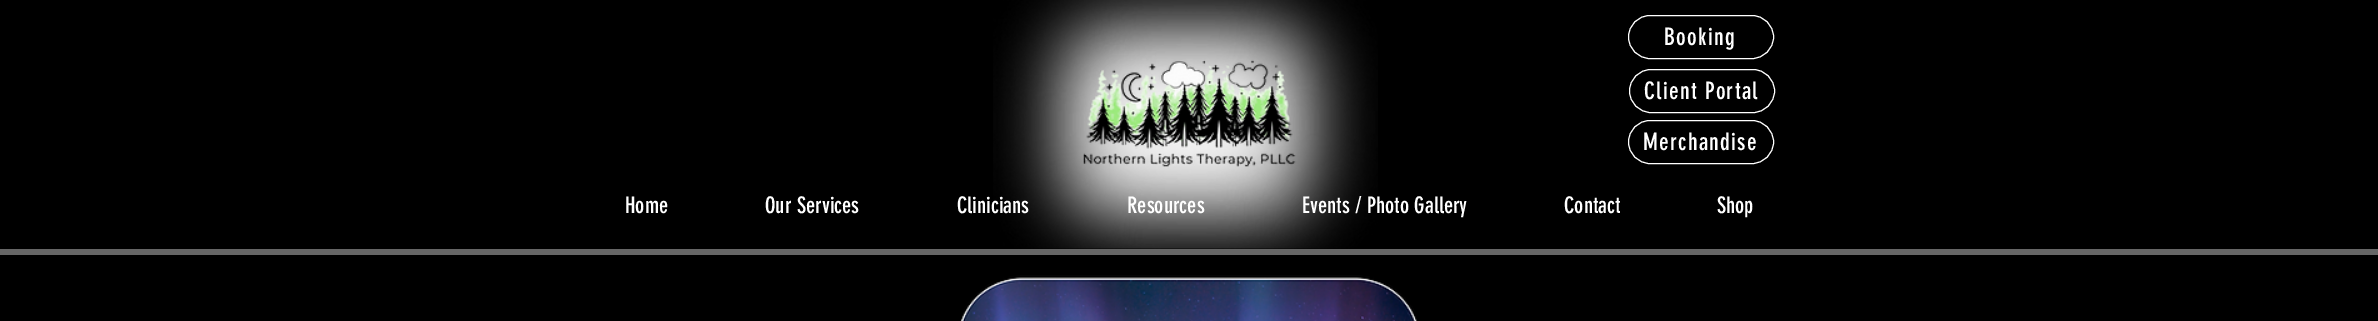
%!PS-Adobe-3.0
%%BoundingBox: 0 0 2378 321
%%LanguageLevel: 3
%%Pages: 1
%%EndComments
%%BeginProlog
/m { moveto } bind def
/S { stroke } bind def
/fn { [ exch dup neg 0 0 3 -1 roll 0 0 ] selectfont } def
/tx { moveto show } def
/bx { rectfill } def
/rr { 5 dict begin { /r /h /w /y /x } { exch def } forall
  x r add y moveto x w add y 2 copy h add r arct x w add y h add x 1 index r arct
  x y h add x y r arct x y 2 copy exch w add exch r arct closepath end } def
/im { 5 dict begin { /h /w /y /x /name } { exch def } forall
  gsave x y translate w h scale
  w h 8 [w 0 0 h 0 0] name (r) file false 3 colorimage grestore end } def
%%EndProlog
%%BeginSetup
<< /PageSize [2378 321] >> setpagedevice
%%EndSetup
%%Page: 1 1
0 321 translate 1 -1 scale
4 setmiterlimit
0 setgray
0 0 2378 321 bx
(image0.raw) 993 0 385 249 im
1 setgray
1628.5 15.5 145 43 21.5 rr S
/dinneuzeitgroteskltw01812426-Regular 23.75 fn
1664 45 m 1.25 0 (Booking) ashow
1629.5 69.5 145 43 21.5 rr S
1644 99 m 1.25 0 (Client Portal) ashow
1628.5 120.5 145 43 21.5 rr S
1643 150 m 1.25 0 (Merchandise) ashow
/dinneuzeitgroteskltw01812426-Regular 22.5 fn
(Home) 625 213 tx
(Our Services) 765 213 tx
(Clinicians) 957 213 tx
(Resources) 1127 213 tx
(Events / Photo Gallery) 1302 213 tx
(Contact) 1564 213 tx
(Shop) 1717 213 tx
0.4 setgray
0 249 2378 6 bx
(image1.raw) 961 275 456 46 im
showpage
%%EOF
